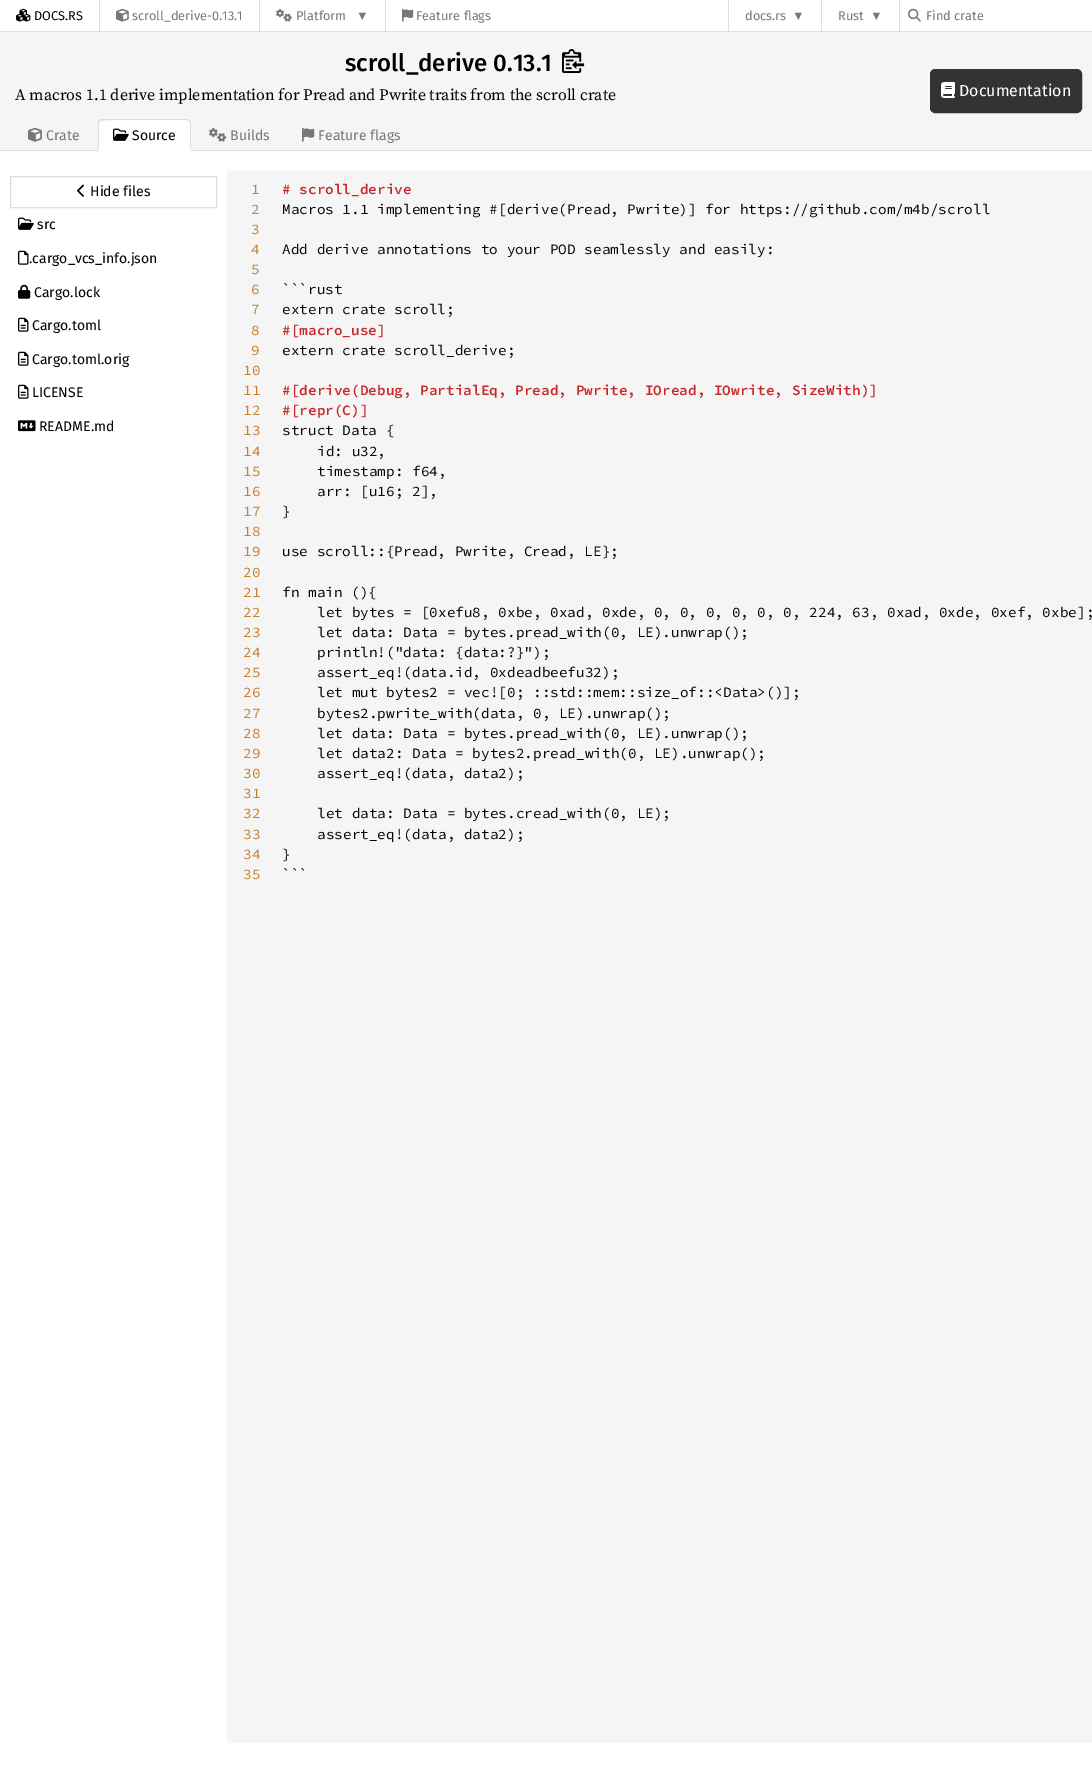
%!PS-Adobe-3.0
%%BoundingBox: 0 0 1092 1773
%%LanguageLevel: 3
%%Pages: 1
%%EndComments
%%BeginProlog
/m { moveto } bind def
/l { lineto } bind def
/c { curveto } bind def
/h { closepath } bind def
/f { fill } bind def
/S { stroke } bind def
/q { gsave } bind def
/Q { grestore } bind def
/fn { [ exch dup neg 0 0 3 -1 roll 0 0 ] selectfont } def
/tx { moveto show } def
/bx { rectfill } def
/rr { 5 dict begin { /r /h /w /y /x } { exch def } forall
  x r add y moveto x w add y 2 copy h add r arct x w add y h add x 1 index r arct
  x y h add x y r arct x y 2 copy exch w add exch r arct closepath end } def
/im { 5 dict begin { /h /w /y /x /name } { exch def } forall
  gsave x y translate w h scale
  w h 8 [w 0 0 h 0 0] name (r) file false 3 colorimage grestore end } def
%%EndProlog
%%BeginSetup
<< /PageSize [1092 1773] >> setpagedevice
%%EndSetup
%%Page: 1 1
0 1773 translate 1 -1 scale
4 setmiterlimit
1 setgray
0 0 1092 1773 bx
0.867 setgray
0 31 1092 1 bx
(image0.raw) 16 8 15 14 im
/FiraSans-Regular 12.75 fn
0 setgray
(DOCS.RS) 34 20 tx
0.867 setgray
99 0 1 31 bx
(image1.raw) 116 8 13 14 im
0.467 setgray
(scroll_derive-0.13.1) 132 20 tx
0.867 setgray
259 0 1 31 bx
(image2.raw) 276 9 16 13 im
0.467 setgray
(Platform) 296 20 tx
/LiberationSans-Regular 12.75 fn
(▼) 356 20 tx
0.867 setgray
385 0 1 31 bx
(image3.raw) 402 8 12 14 im
/FiraSans-Regular 12.75 fn
0.467 setgray
(Feature flags) 416 20 tx
0.867 setgray
728 0 1 31 bx
0.467 setgray
(docs.rs) 745 20 tx
/LiberationSans-Regular 12.75 fn
(▼) 792 20 tx
0.867 setgray
821 0 1 31 bx
/FiraSans-Regular 12.75 fn
0.467 setgray
(Rust) 838 20 tx
/LiberationSans-Regular 12.75 fn
(▼) 870 20 tx
0.867 setgray
899 0 1 31 bx
(image4.raw) 908 8 13 14 im
/FiraSans-Regular 12.75 fn
0.467 setgray
(Find crate) 926 20 tx
0.961 setgray
0 32 1092 118 bx
0.867 setgray
0 150 1092 1 bx
/FiraSans-Medium 24 fn
0 setgray
(scroll_derive 0.13.1) 345 71 tx
(image5.raw) 562 49 23 24 im
/SourceSerif4-Regular 16 fn
(A macros 1.1 derive implementation for Pread and Pwrite traits from the scroll crate) 15 100 tx
(image6.raw) 28 127 14 15 im
/FiraSans-Regular 14 fn
0.467 setgray
(Crate) 46 140 tx
1 setgray
102 120 m 187 120 l 188.5 120 190 121.5 190 123 c 190 149 l 99 149 l 99 123 l 99 121.5 100.5 120 102 120 c h f
0.867 setgray
102 119 m 99 120 l 100 121 l 102 119 165 120 173 120 c 187 120 l 189 121 l 190 120 l 187 119 l h f
191 151 m 191 123 l 191 122 190.5 121 190 120 c 189 121 l 190 121 190 122 190 123 c 190 149 l h f
1 setgray
191 151 m 190 149 l 99 149 l 98 151 l h f
0.867 setgray
98 151 m 99 149 l 99 123 l 99 122 99 121 100 121 c 99 120 l 98.5 121 98 122 98 123 c h f
(image7.raw) 113 128 16 13 im
0 setgray
(Source) 132 140 tx
(image8.raw) 209 128 18 14 im
0.467 setgray
(Builds) 230 140 tx
(image9.raw) 302 127 13 15 im
(Feature flags) 318 140 tx
0.2 setgray
930.5 69.5 151 43 4.5 rr q f Q
S
(image10.raw) 941 82 14 16 im
/FiraSans-Regular 16 fn
1 setgray
(Documentation) 959 96 tx
0.867 setgray
10.5 176.5 206 31 rectstroke
(image11.raw) 77 184 7 13 im
/FiraSans-Regular 14 fn
0 setgray
(Hide files) 90 196 tx
(image7.raw) 18 217 16 13 im
(src) 37 229 tx
(image12.raw) 18 250 11 15 im
(.cargo_vcs_info.json) 29 263 tx
(image13.raw) 18 284 13 15 im
(Cargo.lock) 34 297 tx
(image14.raw) 18 317 11 15 im
(Cargo.toml) 32 330 tx
(image14.raw) 18 351 11 15 im
(Cargo.toml.orig) 32 364 tx
(image14.raw) 18 384 11 15 im
(LICENSE) 32 397 tx
(image15.raw) 18 420 18 12 im
(README.md) 39 431 tx
0.961 setgray
227 171 865 1572 bx
/SourceCodePro-Regular 14.4 fn
0.776 0.494 0.176 setrgbcolor
(1) 251 194 tx
(2) 251 214 tx
(3) 251 234 tx
(4) 251 254 tx
(5) 251 274 tx
(6) 251 294 tx
(7) 251 314 tx
(8) 251 335 tx
(9) 251 355 tx
(10) 243 375 tx
(11) 243 395 tx
(12) 243 415 tx
(13) 243 435 tx
(14) 243 456 tx
(15) 243 476 tx
(16) 243 496 tx
(17) 243 516 tx
(18) 243 536 tx
(19) 243 556 tx
(20) 243 577 tx
(21) 243 597 tx
(22) 243 617 tx
(23) 243 637 tx
(24) 243 657 tx
(25) 243 677 tx
(26) 243 697 tx
(27) 243 718 tx
(28) 243 738 tx
(29) 243 758 tx
(30) 243 778 tx
(31) 243 798 tx
(32) 243 818 tx
(33) 243 839 tx
(34) 243 859 tx
(35) 243 879 tx
/SourceCodePro-SemiBold 14.4 fn
0.784 0.157 0.161 setrgbcolor
(# scroll_derive) 282 194 tx
/SourceCodePro-Regular 14.4 fn
0 setgray
(Macros 1.1 implementing #[derive\(Pread, Pwrite\)] for https://github.com/m4b/scroll) 282 214 tx
(Add derive annotations to your POD seamlessly and easily:) 282 254 tx
(```rust) 282 294 tx
(extern crate scroll;) 282 314 tx
/SourceCodePro-SemiBold 14.4 fn
0.784 0.157 0.161 setrgbcolor
(#[macro_use]) 282 335 tx
/SourceCodePro-Regular 14.4 fn
0 setgray
(extern crate scroll_derive;) 282 355 tx
/SourceCodePro-SemiBold 14.4 fn
0.784 0.157 0.161 setrgbcolor
(#[derive\(Debug, PartialEq, Pread, Pwrite, IOread, IOwrite, SizeWith\)]) 282 395 tx
(#[repr\(C\)]) 282 415 tx
/SourceCodePro-Regular 14.4 fn
0 setgray
(struct Data {) 282 435 tx
(id: u32,) 317 456 tx
(timestamp: f64,) 317 476 tx
(arr: [u16; 2],) 317 496 tx
(}) 282 516 tx
(use scroll::{Pread, Pwrite, Cread, LE};) 282 556 tx
(fn main \(\){) 282 597 tx
(let bytes = [0xefu8, 0xbe, 0xad, 0xde, 0, 0, 0, 0, 0, 0, 224, 63, 0xad, 0xde, 0xef, 0xbe];) 317 617 tx
(let data: Data = bytes.pread_with\(0, LE\).unwrap\(\);) 317 637 tx
(println!\("data: {data:?}"\);) 317 657 tx
(assert_eq!\(data.id, 0xdeadbeefu32\);) 317 677 tx
(let mut bytes2 = vec![0; ::std::mem::size_of::<Data>\(\)];) 317 697 tx
(bytes2.pwrite_with\(data, 0, LE\).unwrap\(\);) 317 718 tx
(let data: Data = bytes.pread_with\(0, LE\).unwrap\(\);) 317 738 tx
(let data2: Data = bytes2.pread_with\(0, LE\).unwrap\(\);) 317 758 tx
(assert_eq!\(data, data2\);) 317 778 tx
(let data: Data = bytes.cread_with\(0, LE\);) 317 818 tx
(assert_eq!\(data, data2\);) 317 839 tx
(}) 282 859 tx
(```) 282 879 tx
showpage
%%EOF
